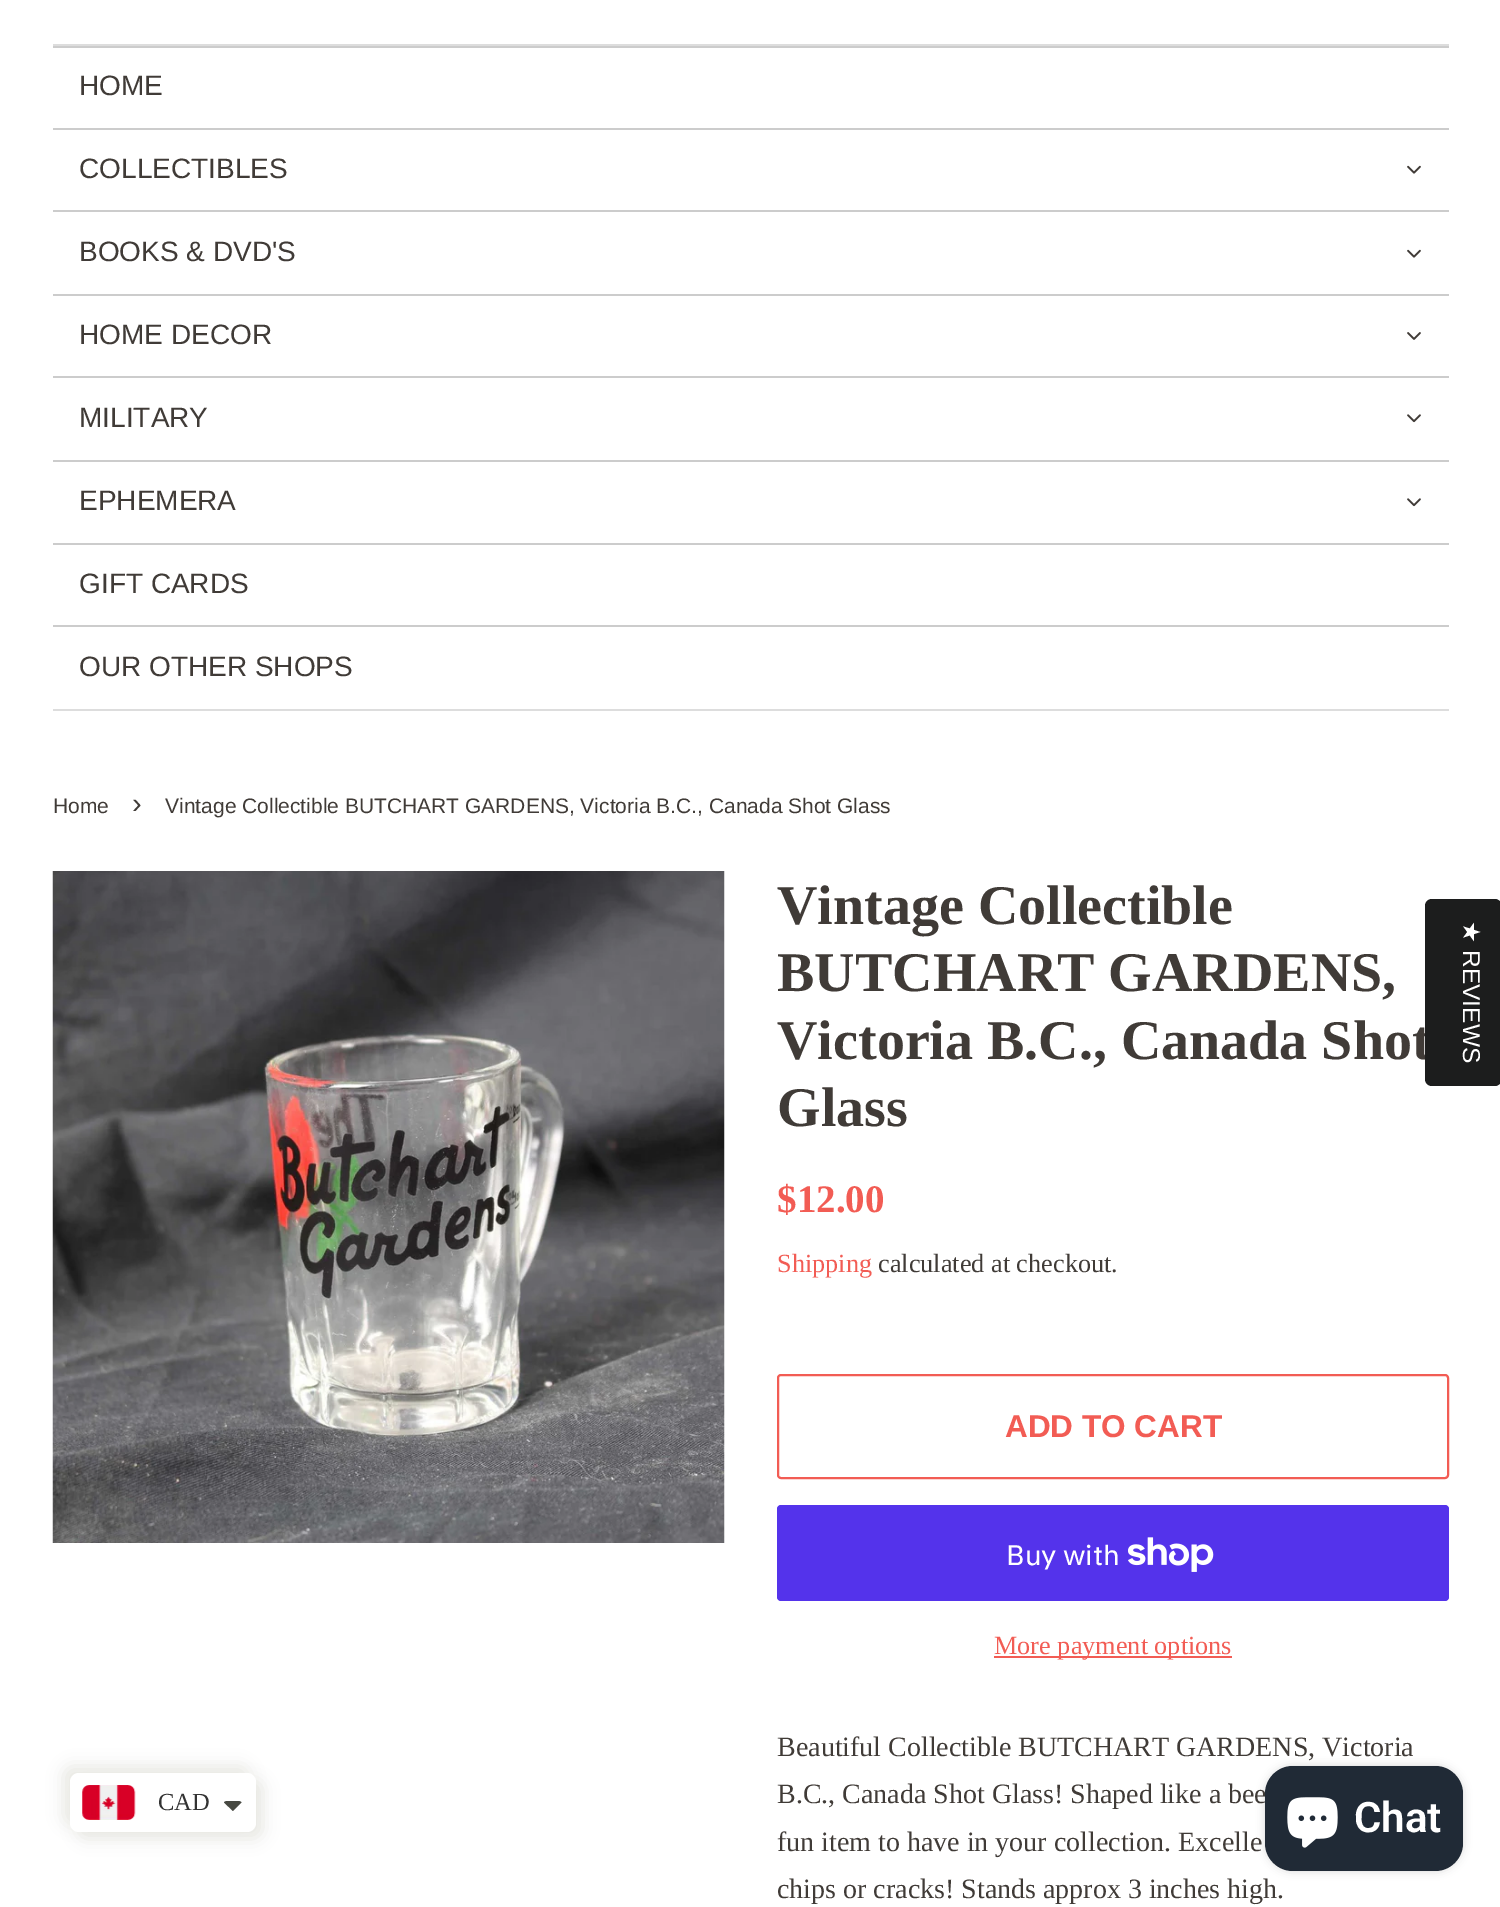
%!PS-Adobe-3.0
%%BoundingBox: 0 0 1500 1907
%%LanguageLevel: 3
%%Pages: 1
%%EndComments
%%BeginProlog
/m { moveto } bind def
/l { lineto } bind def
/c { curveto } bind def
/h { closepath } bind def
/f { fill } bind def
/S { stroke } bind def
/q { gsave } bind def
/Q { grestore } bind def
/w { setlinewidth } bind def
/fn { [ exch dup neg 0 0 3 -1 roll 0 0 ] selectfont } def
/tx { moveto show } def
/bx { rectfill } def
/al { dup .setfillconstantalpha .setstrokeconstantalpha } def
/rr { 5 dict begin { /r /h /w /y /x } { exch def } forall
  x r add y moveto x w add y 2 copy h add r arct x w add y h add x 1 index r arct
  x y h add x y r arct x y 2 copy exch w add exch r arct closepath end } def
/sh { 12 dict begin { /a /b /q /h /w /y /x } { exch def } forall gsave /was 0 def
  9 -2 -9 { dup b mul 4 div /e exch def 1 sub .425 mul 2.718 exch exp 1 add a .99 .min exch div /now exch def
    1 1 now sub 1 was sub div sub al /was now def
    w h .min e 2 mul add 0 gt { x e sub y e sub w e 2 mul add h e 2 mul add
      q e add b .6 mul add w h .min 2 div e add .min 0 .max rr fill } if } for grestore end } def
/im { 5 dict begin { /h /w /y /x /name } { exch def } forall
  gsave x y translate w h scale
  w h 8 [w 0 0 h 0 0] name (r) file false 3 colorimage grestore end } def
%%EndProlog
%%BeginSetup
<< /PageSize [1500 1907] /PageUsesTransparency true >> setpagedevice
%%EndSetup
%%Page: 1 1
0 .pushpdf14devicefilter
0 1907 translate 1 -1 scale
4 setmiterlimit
1 setgray
0 0 1500 1907 bx
0.867 setgray
53 44 1396 2 bx
53 709 1396 2 bx
0.8 setgray
53 46 1396 2 bx
/LiberationSans-Regular 28 fn
0.251 0.231 0.216 setrgbcolor
(HOME) 79 95 tx
0.8 setgray
53 128 1396 2 bx
0.251 0.231 0.216 setrgbcolor
(COLLECTIBLES) 79 178 tx
(image0.raw) 1407 165 14 9 im
0.8 setgray
53 210 1396 2 bx
0.251 0.231 0.216 setrgbcolor
(BOOKS & DVD'S) 79 261 tx
(image0.raw) 1407 249 14 9 im
0.8 setgray
53 294 1396 2 bx
0.251 0.231 0.216 setrgbcolor
(HOME DECOR) 79 344 tx
(image1.raw) 1407 332 14 8 im
0.8 setgray
53 376 1396 2 bx
0.251 0.231 0.216 setrgbcolor
(MILITARY) 79 427 tx
(image2.raw) 1407 414 14 9 im
0.8 setgray
53 460 1396 2 bx
0.251 0.231 0.216 setrgbcolor
(EPHEMERA) 79 510 tx
(image2.raw) 1407 498 14 9 im
0.8 setgray
53 543 1396 2 bx
0.251 0.231 0.216 setrgbcolor
(GIFT CARDS) 79 593 tx
0.8 setgray
53 625 1396 2 bx
0.251 0.231 0.216 setrgbcolor
(OUR OTHER SHOPS) 79 676 tx
/LiberationSans-Regular 21 fn
(Home) 53 813 tx
/LiberationSans-Regular 29 fn
(›) 132 813 tx
/LiberationSans-Regular 21 fn
(Vintage Collectible BUTCHART GARDENS, Victoria B.C., Canada Shot Glass) 165 813 tx
(image3.raw) 52 871 673 672 im
/LiberationSerif-Bold 56 fn
(Vintage Collectible) 777 924 tx
(BUTCHART GARDENS,) 777 991 tx
(Victoria B.C., Canada Shot) 777 1059 tx
(Glass) 777 1126 tx
/LiberationSerif-Bold 39 fn
0.949 0.361 0.329 setrgbcolor
($12.00) 777 1212 tx
/LiberationSerif-Regular 26.25 fn
(Shipping) 777 1272 tx
0.251 0.231 0.216 setrgbcolor
(calculated at checkout.) 878 1272 tx
0.949 0.361 0.329 setrgbcolor
2 w
778 1375 670 103 3 rr S
/LiberationSans-Bold 31.5 fn
(ADD TO CART) 1005 1437 tx
0.329 0.2 0.922 setrgbcolor
777 1505 672 96 4 rr f
/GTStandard-Regular 28 fn
1 setgray
(Buy with) 1006 1565 tx
(image4.raw) 1128 1537 86 35 im
0.949 0.361 0.329 setrgbcolor
994 1656 238 2 bx
/LiberationSerif-Regular 26.25 fn
(More payment options) 994 1654 tx
/LiberationSerif-Regular 28 fn
0.251 0.231 0.216 setrgbcolor
(Beautiful Collectible BUTCHART GARDENS, Victoria) 777 1756 tx
(B.C., Canada Shot Glass! Shaped like a bee) 777 1803 tx
(fun item to have in your collection. Excelle) 777 1851 tx
(chips or cracks! Stands approx 3 inches high.) 777 1898 tx
0.11 0.114 0.114 setrgbcolor
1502 906 m 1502 1079 l 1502 1083 1498 1086 1495 1086 c 1432 1086 l 1428 1086 1425 1083 1425 1079 c 1425 906 l 1425 902 1428 899 1432 899 c 1495 899 l 1498 899 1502 902 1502 906 c h f
/DejaVuSans-Regular 24.5 fn
1 setgray
q 1463 921 translate 90 rotate 0 0 m (★) show Q
/LiberationSans-Regular 24.5 fn
q 1463 950 translate 90 rotate 0 0 m (REVIEWS) show Q
0.91 0.91 0.886 setrgbcolor
63 1766 186 59 9 8 1 sh
77 1780 186 59 9 8 1 sh
1 setgray
70 1773 186 59 9 rr f
(image5.raw) 82 1785 54 35 im
/LiberationSerif-Regular 24.5 fn
0.2 setgray
(CAD) 158 1810 tx
0.278 0.286 0.259 setrgbcolor
227.5 1801 m 238 1801 l 239.5 1801 241 1801.5 241.5 1802.5 c 233 1811 l 224 1802.5 l 224.5 1801.5 226 1801 227.5 1801 c h f
0 setgray
1265 1766 198 105 28 4.5 0.15 sh
0.125 0.165 0.212 setrgbcolor
1265 1766 198 105 28 rr f
(image6.raw) 1287 1797 51 51 im
/Roboto-SemiBold 42 fn
1 setgray
(Chat) 1354 1832 tx
.poppdf14devicefilter showpage
%%EOF
